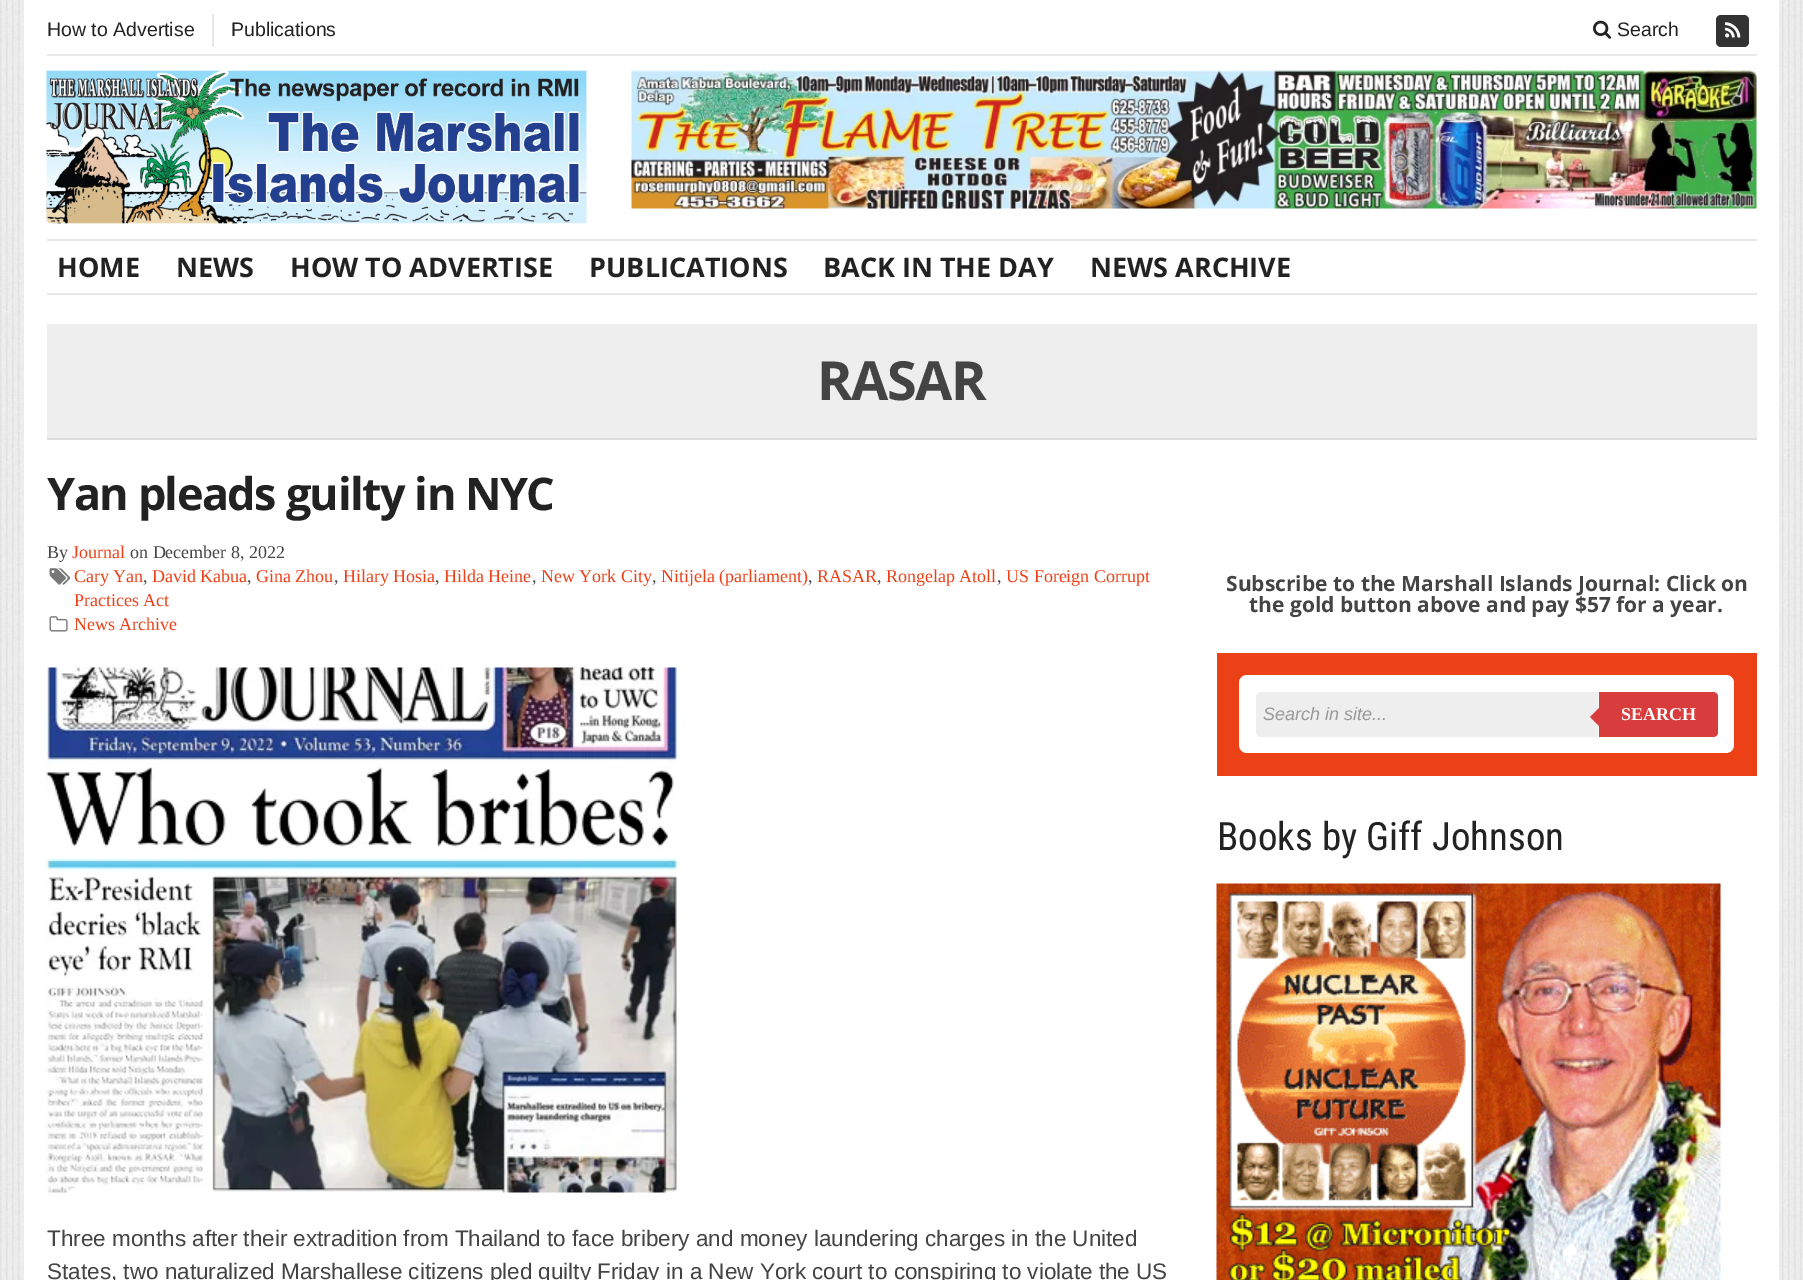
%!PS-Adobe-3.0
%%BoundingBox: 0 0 1803 1280
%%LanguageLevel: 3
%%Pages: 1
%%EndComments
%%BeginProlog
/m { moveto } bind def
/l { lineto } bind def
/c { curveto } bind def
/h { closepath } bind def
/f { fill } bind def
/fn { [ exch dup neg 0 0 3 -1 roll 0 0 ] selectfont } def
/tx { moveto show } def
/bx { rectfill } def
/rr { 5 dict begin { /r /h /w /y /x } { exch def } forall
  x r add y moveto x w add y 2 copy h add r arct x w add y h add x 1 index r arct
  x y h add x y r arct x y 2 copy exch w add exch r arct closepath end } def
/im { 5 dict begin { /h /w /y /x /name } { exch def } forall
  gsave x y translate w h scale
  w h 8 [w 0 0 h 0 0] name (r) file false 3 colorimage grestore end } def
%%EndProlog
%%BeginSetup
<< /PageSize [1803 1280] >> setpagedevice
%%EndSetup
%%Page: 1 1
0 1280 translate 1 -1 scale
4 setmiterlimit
1 setgray
0 0 1803 1280 bx
(image0.raw) 0 0 1803 1280 im
24 0 1755 1280 bx
0.91 setgray
47 54 1710 2 bx
/LiberationSans-Regular 19.5 fn
0.133 setgray
(How to Advertise) 47 36 tx
0.91 setgray
212 14 2 33 bx
0.133 setgray
(Publications) 231 36 tx
(image1.raw) 1593 20 19 19 im
(Search) 1617 36 tx
0.2 setgray
1716 15 33 32 5 rr f
(image2.raw) 1725 22 16 16 im
(image3.raw) 46 70 541 154 im
(image4.raw) 631 70 1126 139 im
0.91 setgray
47 239 1710 2 bx
47 293 1710 2 bx
/OpenSans-Bold 27 fn
0.133 setgray
(HOME) 57 277 tx
(NEWS) 176 277 tx
(HOW TO ADVERTISE) 290 277 tx
(PUBLICATIONS) 589 277 tx
(BACK IN THE DAY) 823 277 tx
(NEWS ARCHIVE) 1090 277 tx
0.933 setgray
47 324 1710 114 bx
0.867 setgray
47 438 1710 2 bx
/OpenSans-Bold 54 fn
0.267 setgray
817 400 m -1.5 0 (RASAR) ashow
/OpenSans-Bold 45 fn
0.133 setgray
47 510 m -1.5 0 (Yan pleads guilty in NYC) ashow
/LiberationSerif-Regular 18 fn
0.267 setgray
(By) 47 558 tx
0.925 0.251 0.09 setrgbcolor
(Journal) 72 558 tx
0.267 setgray
(on December 8, 2022) 130 558 tx
(image5.raw) 49 568 22 17 im
0.925 0.251 0.09 setrgbcolor
(Cary Yan) 74 582 tx
0.267 setgray
(,) 143 582 tx
0.925 0.251 0.09 setrgbcolor
(David Kabua) 152 582 tx
0.267 setgray
(,) 247 582 tx
0.925 0.251 0.09 setrgbcolor
(Gina Zhou) 256 582 tx
0.267 setgray
(,) 334 582 tx
0.925 0.251 0.09 setrgbcolor
(Hilary Hosia) 343 582 tx
0.267 setgray
(,) 435 582 tx
0.925 0.251 0.09 setrgbcolor
(Hilda Heine) 444 582 tx
0.267 setgray
(,) 532 582 tx
0.925 0.251 0.09 setrgbcolor
(New York City) 541 582 tx
0.267 setgray
(,) 652 582 tx
0.925 0.251 0.09 setrgbcolor
(Nitijela \(parliament\)) 661 582 tx
0.267 setgray
(,) 808 582 tx
0.925 0.251 0.09 setrgbcolor
(RASAR) 817 582 tx
0.267 setgray
(,) 877 582 tx
0.925 0.251 0.09 setrgbcolor
(Rongelap Atoll) 886 582 tx
0.267 setgray
(,) 997 582 tx
0.925 0.251 0.09 setrgbcolor
(US Foreign Corrupt) 1006 582 tx
(Practices Act) 74 606 tx
(image6.raw) 49 616 19 16 im
(News Archive) 74 630 tx
(image7.raw) 46 667 631 526 im
/LiberationSans-Regular 22.5 fn
0.267 setgray
(Three months after their extradition from Thailand to face bribery and money laundering charges in the United) 47 1246 tx
(States, two naturalized Marshallese citizens pled guilty Friday in a New York court to conspiring to violate the US) 47 1279 tx
/OpenSans-Bold 21 fn
(Subscribe to the Marshall Islands Journal: Click on) 1226 591 tx
(the gold button above and pay $57 for a year.) 1249 612 tx
0.925 0.251 0.09 setrgbcolor
1217 653 540 123 bx
1 setgray
1239 675 495 78 8 rr f
0.933 setgray
1261 692 m 1598 692 l 1598 737 l 1261 737 l 1258 737 1256 735 1256 732 c 1256 697 l 1256 694 1258 692 1261 692 c h f
/LiberationSans-Italic 18 fn
0.6 setgray
(Search in site...) 1263 720 tx
0.847 0.235 0.235 setrgbcolor
1599 692 m 1713 692 l 1716 692 1718 694 1718 697 c 1718 732 l 1718 735 1716 737 1713 737 c 1599 737 l h f
1602 705 m 1602 729 l 1590 717 l h f
/LiberationSerif-Bold 18 fn
1 setgray
(SEARCH) 1621 720 tx
/RobotoCondensed-Regular 39 fn
0.133 setgray
(Books by Giff Johnson) 1217 850 tx
(image8.raw) 1216 883 505 397 im
showpage
%%EOF
